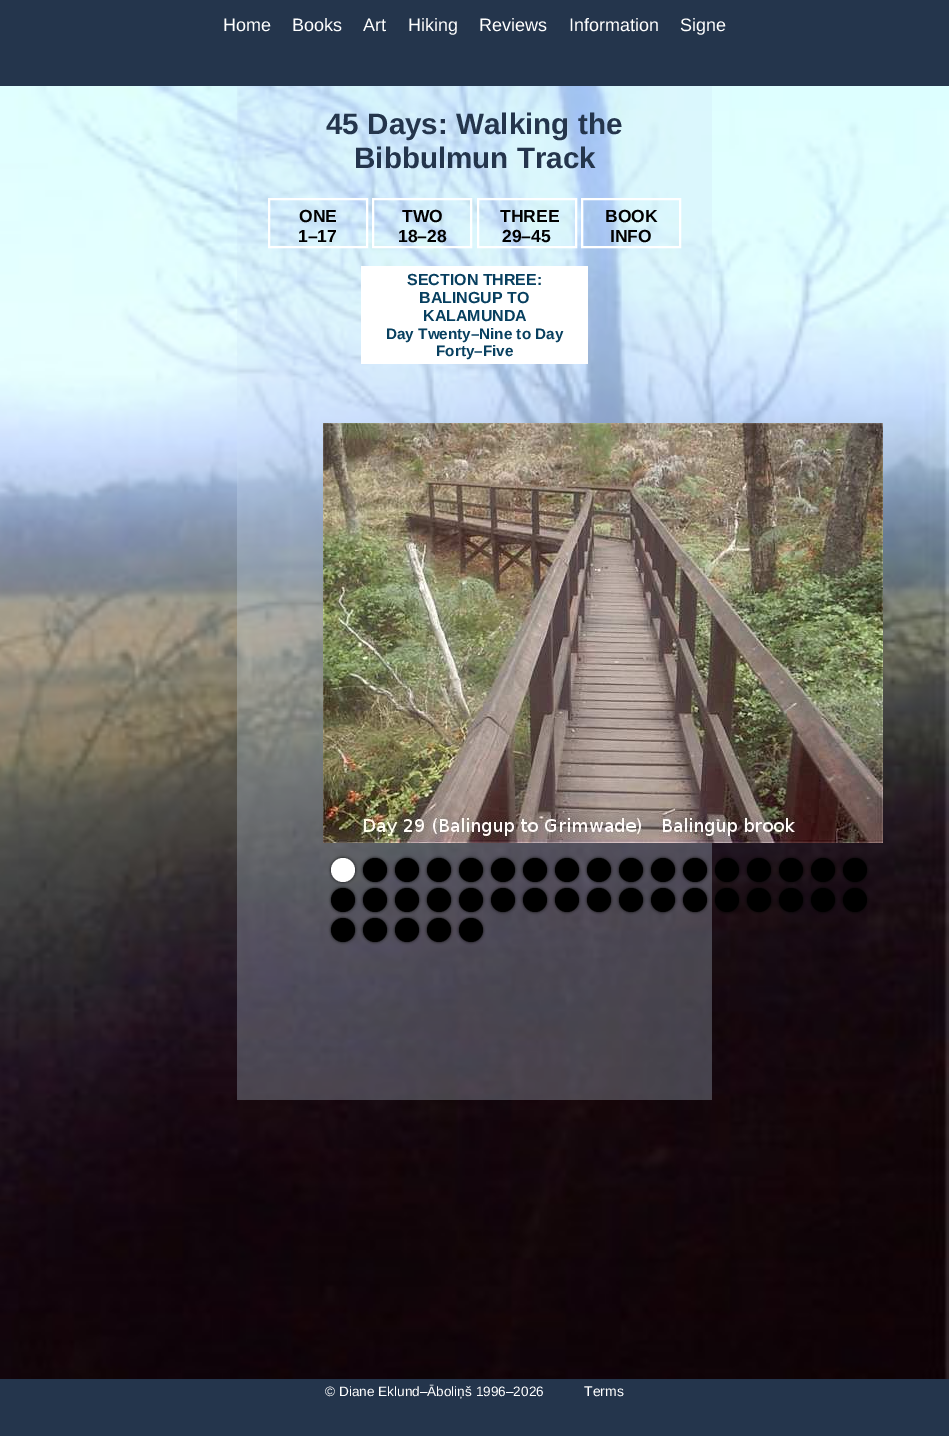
%!PS-Adobe-3.0
%%BoundingBox: 0 0 949 1436
%%LanguageLevel: 3
%%Pages: 1
%%EndComments
%%BeginProlog
/f { fill } bind def
/w { setlinewidth } bind def
/fn { [ exch dup neg 0 0 3 -1 roll 0 0 ] selectfont } def
/tx { moveto show } def
/bx { rectfill } def
/al { dup .setfillconstantalpha .setstrokeconstantalpha } def
/ci { newpath 0 360 arc closepath } def
/rr { 5 dict begin { /r /h /w /y /x } { exch def } forall
  x r add y moveto x w add y 2 copy h add r arct x w add y h add x 1 index r arct
  x y h add x y r arct x y 2 copy exch w add exch r arct closepath end } def
/sh { 12 dict begin { /a /b /q /h /w /y /x } { exch def } forall gsave /was 0 def
  9 -2 -9 { dup b mul 4 div /e exch def 1 sub .425 mul 2.718 exch exp 1 add a .99 .min exch div /now exch def
    1 1 now sub 1 was sub div sub al /was now def
    w h .min e 2 mul add 0 gt { x e sub y e sub w e 2 mul add h e 2 mul add
      q e add b .6 mul add w h .min 2 div e add .min 0 .max rr fill } if } for grestore end } def
/im { 5 dict begin { /h /w /y /x /name } { exch def } forall
  gsave x y translate w h scale
  w h 8 [w 0 0 h 0 0] name (r) file false 3 colorimage grestore end } def
%%EndProlog
%%BeginSetup
<< /PageSize [949 1436] /PageUsesTransparency true >> setpagedevice
%%EndSetup
%%Page: 1 1
0 .pushpdf14devicefilter
0 1436 translate 1 -1 scale
4 setmiterlimit
1 setgray
0 0 949 1436 bx
(image0.raw) 0 86 949 1293 im
0.141 0.208 0.298 setrgbcolor
0 0 949 86 bx
/LiberationSans-Regular 18 fn
1 setgray
(Home) 223 31 tx
(Books) 292 31 tx
(Art) 363 31 tx
(Hiking) 408 31 tx
(Reviews) 479 31 tx
(Information) 569 31 tx
(Signe) 680 31 tx
0.27 al
0.808 0.89 0.965 setrgbcolor
237 86 475 1014 bx
/LiberationSans-Bold 29.6 fn
1 al
0.141 0.208 0.298 setrgbcolor
(45 Days: Walking the) 326 134 tx
(Bibbulmun Track) 354 168 tx
1 setgray
2 w
269 199 98 48 rectstroke
/LiberationSans-Bold 17.5 fn
0 setgray
(ONE) 299 222 tx
(1–17) 298 242 tx
1 setgray
373 199 98 48 rectstroke
0 setgray
(TWO) 402 222 tx
(18–28) 398 242 tx
1 setgray
478 199 98 48 rectstroke
0 setgray
(THREE) 500 222 tx
(29–45) 502 242 tx
1 setgray
582 199 98 48 rectstroke
0 setgray
(BOOK) 605 222 tx
(INFO) 610 242 tx
1 setgray
361 266 227 98 bx
/LiberationSans-Bold 16 fn
0.027 0.247 0.373 setrgbcolor
(SECTION THREE:) 407 285 tx
(BALINGUP TO) 419 303 tx
(KALAMUNDA) 423 321 tx
/LiberationSans-Bold 15.25 fn
(Day Twenty–Nine to Day) 386 339 tx
(Forty–Five) 436 356 tx
(image1.raw) 323 423 560 420 im
0 setgray
331 858 24 24 12 1.5 0.8 sh
1 setgray
343 870 12 ci f
0 setgray
363 858 24 24 12 1.5 0.8 sh
375 870 12 ci f
395 858 24 24 12 1.5 0.8 sh
407 870 12 ci f
427 858 24 24 12 1.5 0.8 sh
439 870 12 ci f
459 858 24 24 12 1.5 0.8 sh
471 870 12 ci f
491 858 24 24 12 1.5 0.8 sh
503 870 12 ci f
523 858 24 24 12 1.5 0.8 sh
535 870 12 ci f
555 858 24 24 12 1.5 0.8 sh
567 870 12 ci f
587 858 24 24 12 1.5 0.8 sh
599 870 12 ci f
619 858 24 24 12 1.5 0.8 sh
631 870 12 ci f
651 858 24 24 12 1.5 0.8 sh
663 870 12 ci f
683 858 24 24 12 1.5 0.8 sh
695 870 12 ci f
715 858 24 24 12 1.5 0.8 sh
727 870 12 ci f
747 858 24 24 12 1.5 0.8 sh
759 870 12 ci f
779 858 24 24 12 1.5 0.8 sh
791 870 12 ci f
811 858 24 24 12 1.5 0.8 sh
823 870 12 ci f
843 858 24 24 12 1.5 0.8 sh
855 870 12 ci f
331 888 24 24 12 1.5 0.8 sh
343 900 12 ci f
363 888 24 24 12 1.5 0.8 sh
375 900 12 ci f
395 888 24 24 12 1.5 0.8 sh
407 900 12 ci f
427 888 24 24 12 1.5 0.8 sh
439 900 12 ci f
459 888 24 24 12 1.5 0.8 sh
471 900 12 ci f
491 888 24 24 12 1.5 0.8 sh
503 900 12 ci f
523 888 24 24 12 1.5 0.8 sh
535 900 12 ci f
555 888 24 24 12 1.5 0.8 sh
567 900 12 ci f
587 888 24 24 12 1.5 0.8 sh
599 900 12 ci f
619 888 24 24 12 1.5 0.8 sh
631 900 12 ci f
651 888 24 24 12 1.5 0.8 sh
663 900 12 ci f
683 888 24 24 12 1.5 0.8 sh
695 900 12 ci f
715 888 24 24 12 1.5 0.8 sh
727 900 12 ci f
747 888 24 24 12 1.5 0.8 sh
759 900 12 ci f
779 888 24 24 12 1.5 0.8 sh
791 900 12 ci f
811 888 24 24 12 1.5 0.8 sh
823 900 12 ci f
843 888 24 24 12 1.5 0.8 sh
855 900 12 ci f
331 918 24 24 12 1.5 0.8 sh
343 930 12 ci f
363 918 24 24 12 1.5 0.8 sh
375 930 12 ci f
395 918 24 24 12 1.5 0.8 sh
407 930 12 ci f
427 918 24 24 12 1.5 0.8 sh
439 930 12 ci f
459 918 24 24 12 1.5 0.8 sh
471 930 12 ci f
0.141 0.208 0.298 setrgbcolor
0 1379 949 57 bx
/LiberationSans-Regular 13.6 fn
1 setgray
(© Diane Eklund–Āboliņš 1996–2026) 325 1396 tx
/LiberationSans-Regular 14 fn
(Terms) 584 1396 tx
.poppdf14devicefilter showpage
%%EOF
